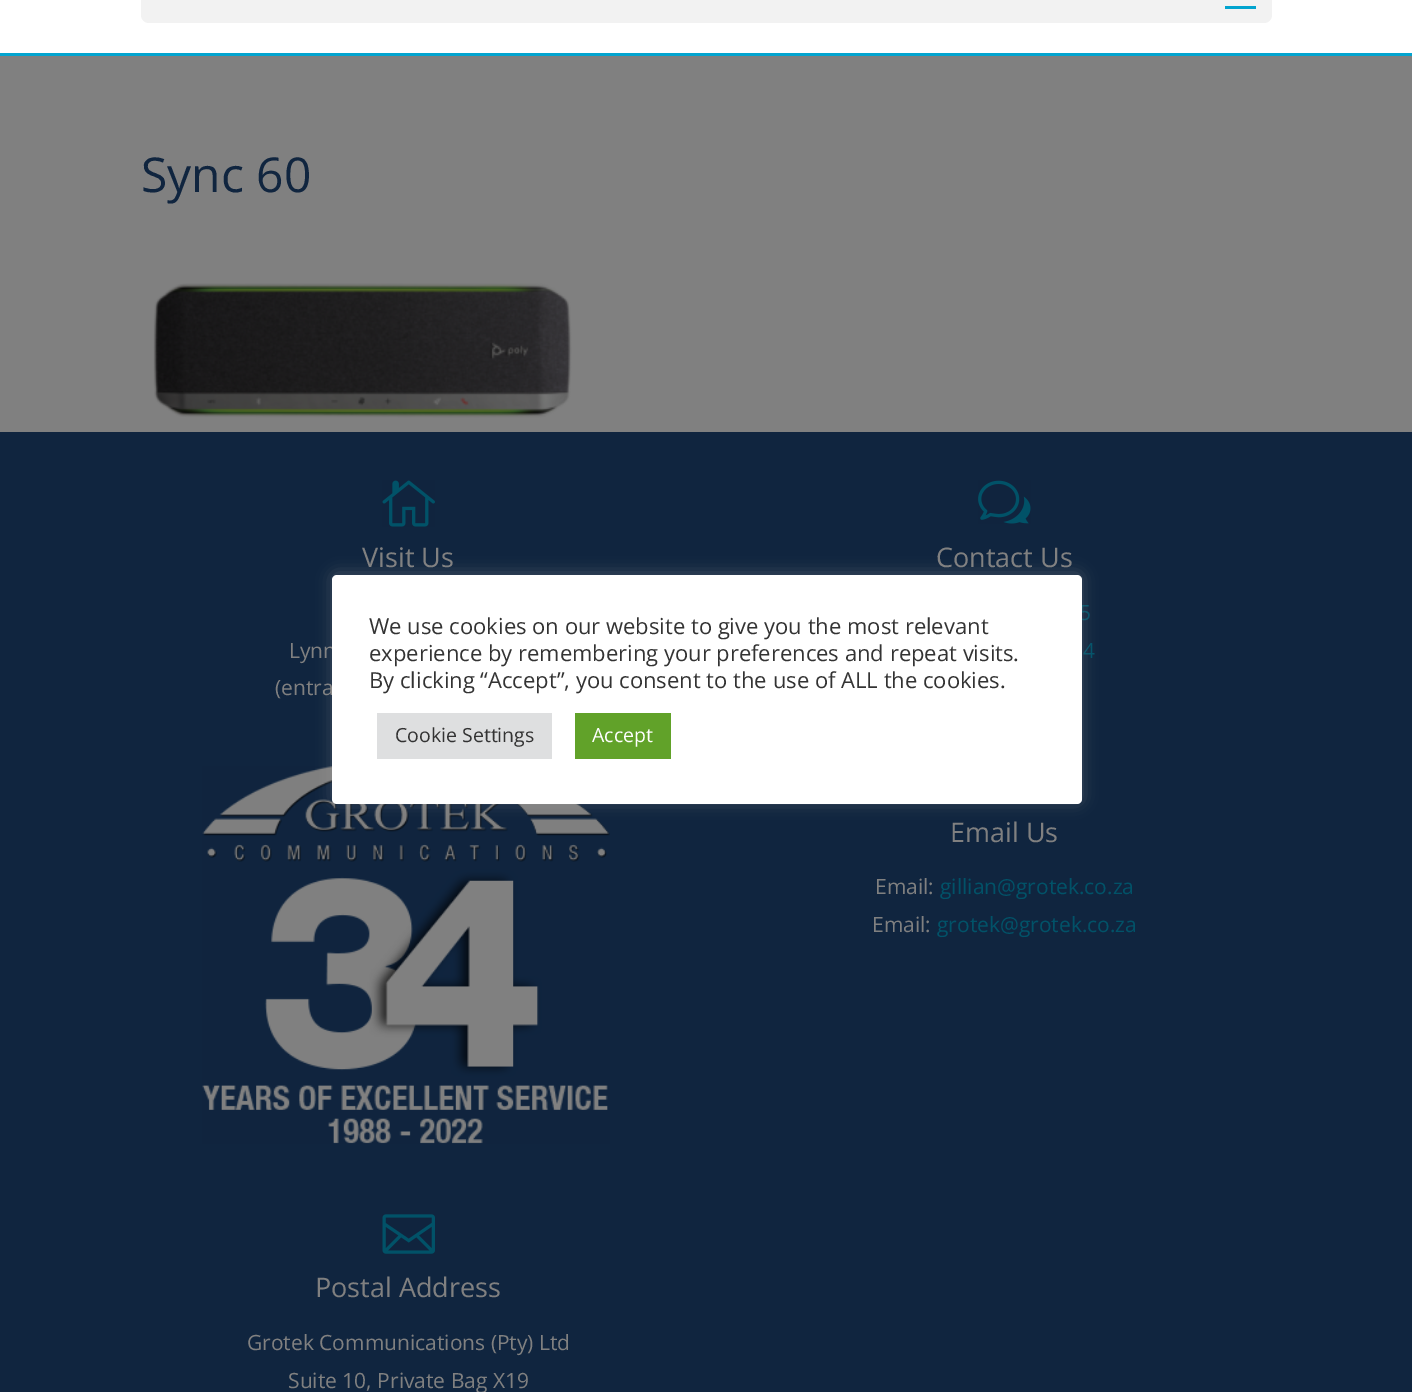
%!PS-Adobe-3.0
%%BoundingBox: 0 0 1412 1392
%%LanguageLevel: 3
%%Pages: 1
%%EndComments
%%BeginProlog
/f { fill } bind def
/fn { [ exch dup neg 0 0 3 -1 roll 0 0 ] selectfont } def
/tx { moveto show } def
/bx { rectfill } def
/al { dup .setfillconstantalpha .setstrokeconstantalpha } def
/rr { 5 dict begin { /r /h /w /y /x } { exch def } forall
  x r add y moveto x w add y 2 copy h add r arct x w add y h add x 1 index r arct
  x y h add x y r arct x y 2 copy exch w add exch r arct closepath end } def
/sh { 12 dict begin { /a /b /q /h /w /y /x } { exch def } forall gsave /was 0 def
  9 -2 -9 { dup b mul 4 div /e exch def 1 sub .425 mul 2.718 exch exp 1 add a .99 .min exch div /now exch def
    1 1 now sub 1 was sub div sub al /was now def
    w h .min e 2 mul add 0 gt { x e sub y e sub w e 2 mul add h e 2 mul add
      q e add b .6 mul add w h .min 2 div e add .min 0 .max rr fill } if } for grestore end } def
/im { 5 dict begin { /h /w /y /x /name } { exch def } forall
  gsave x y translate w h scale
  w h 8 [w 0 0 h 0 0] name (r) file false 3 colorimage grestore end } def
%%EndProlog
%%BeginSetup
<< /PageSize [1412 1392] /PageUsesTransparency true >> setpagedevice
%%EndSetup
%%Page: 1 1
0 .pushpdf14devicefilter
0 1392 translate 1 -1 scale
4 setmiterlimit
0.502 setgray
0 0 1412 1392 bx
1 setgray
0 0 1412 53 bx
0.008 0.643 0.812 setrgbcolor
0 53 1412 3 bx
0.949 setgray
141 -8 1131 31 8 rr f
0.008 0.643 0.812 setrgbcolor
1225 6 31 3 bx
/OpenSans-Regular 48 fn
0.063 0.145 0.247 setrgbcolor
(Sync 60) 141 192 tx
(image0.raw) 153 283 419 135 im
0 432 1412 960 bx
(image1.raw) 382 480 53 47 im
/OpenSans-Regular 27 fn
0.502 setgray
(Visit Us) 362 567 tx
/OpenSans-Regular 21 fn
(Lynn) 289 658 tx
(\(entra) 275 695 tx
(image2.raw) 978 480 53 44 im
/OpenSans-Regular 27 fn
(Contact Us) 936 567 tx
/OpenSans-Regular 21 fn
0.004 0.322 0.408 setrgbcolor
(5) 1079 620 tx
(4) 1083 658 tx
(image3.raw) 202 766 408 378 im
/OpenSans-Regular 27 fn
0.502 setgray
(Email Us) 950 842 tx
/OpenSans-Regular 21 fn
(Email:) 875 894 tx
0.004 0.322 0.408 setrgbcolor
(gillian@grotek.co.za) 940 894 tx
0.502 setgray
(Email:) 872 932 tx
0.004 0.322 0.408 setrgbcolor
(grotek@grotek.co.za) 937 932 tx
(image4.raw) 382 1214 53 40 im
/OpenSans-Regular 27 fn
0.502 setgray
(Postal Address) 315 1297 tx
/OpenSans-Regular 21 fn
(Grotek Communications \(Pty\) Ltd) 247 1350 tx
(Suite 10, Private Bag X19) 288 1388 tx
0.675 0.671 0.671 setrgbcolor
332 573 750 230 5 7.5 0.3 sh
1 setgray
332 575 750 229 5 rr f
/OpenSans-Regular 22 fn
0.2 setgray
(We use cookies on our website to give you the most relevant) 369 634 tx
(experience by remembering your preferences and repeat visits.) 369 661 tx
(By clicking “Accept”, you consent to the use of ALL the cookies.) 369 688 tx
0.871 0.875 0.878 setrgbcolor
377 713 175 46 bx
/OpenSans-Regular 19.5 fn
0.2 setgray
(Cookie Settings) 395 742 tx
0.38 0.635 0.161 setrgbcolor
575 713 96 46 bx
1 setgray
(Accept) 592 742 tx
.poppdf14devicefilter showpage
%%EOF
